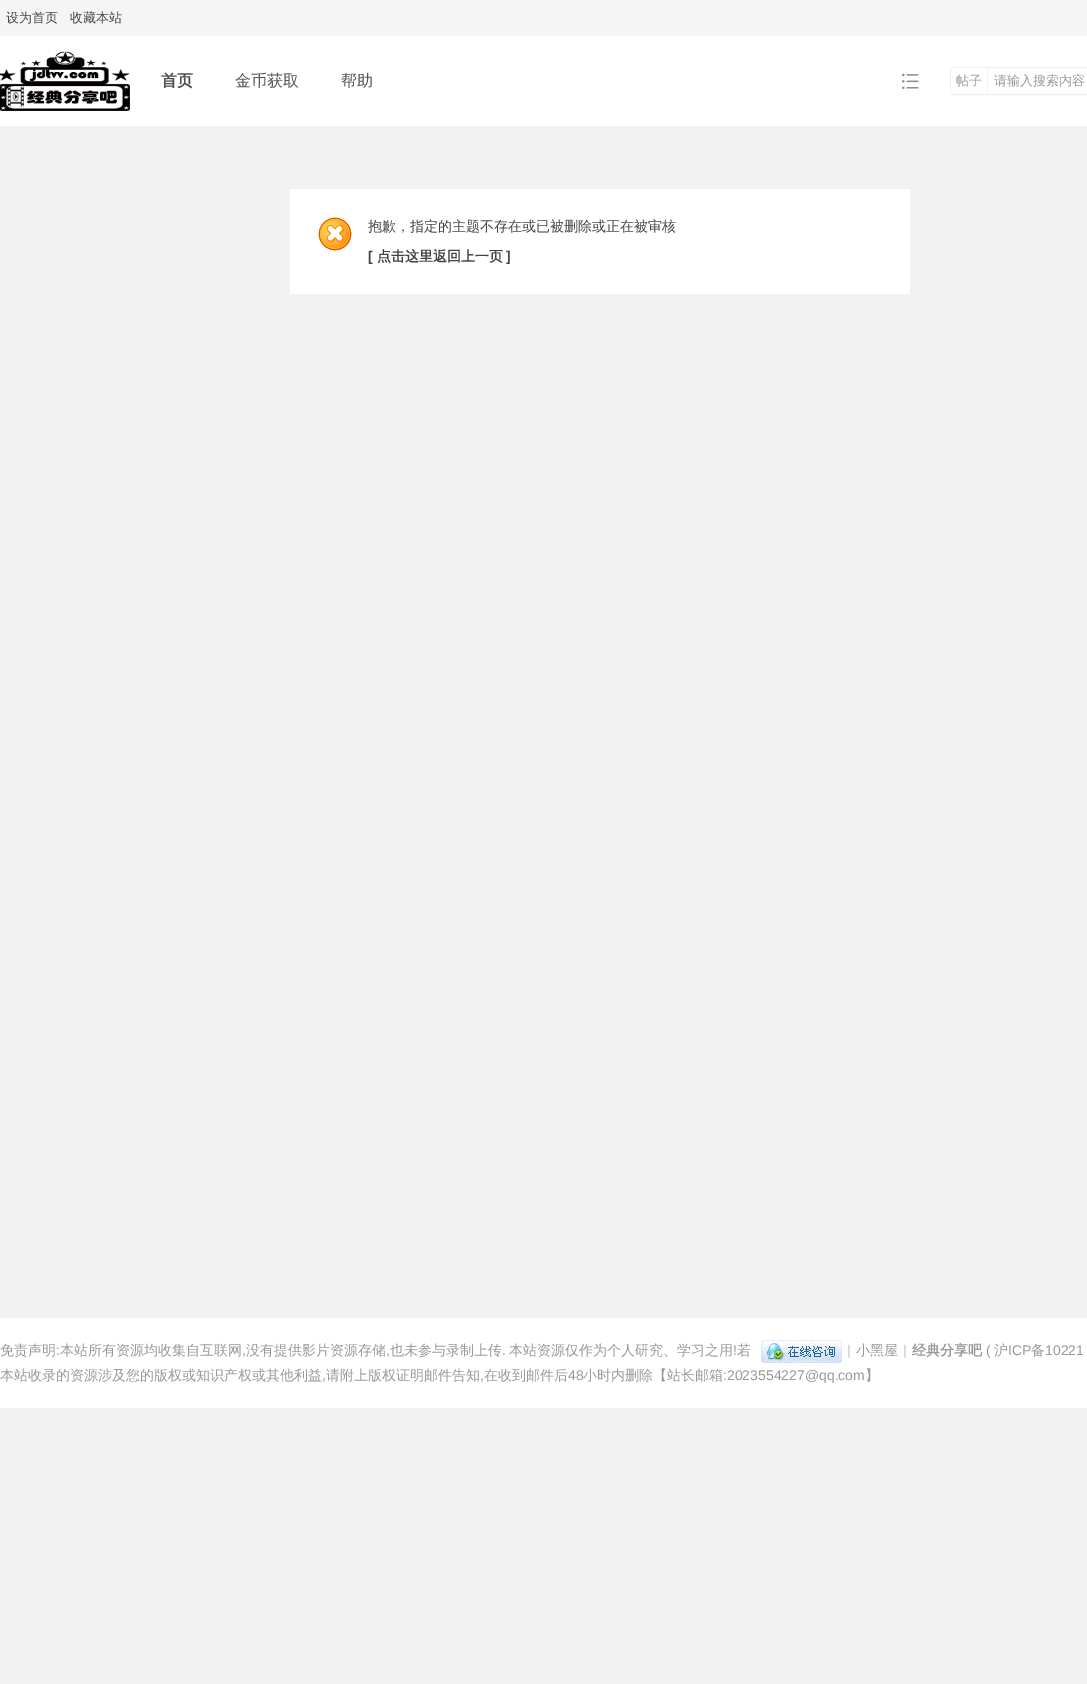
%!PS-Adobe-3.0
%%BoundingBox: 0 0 1087 1684
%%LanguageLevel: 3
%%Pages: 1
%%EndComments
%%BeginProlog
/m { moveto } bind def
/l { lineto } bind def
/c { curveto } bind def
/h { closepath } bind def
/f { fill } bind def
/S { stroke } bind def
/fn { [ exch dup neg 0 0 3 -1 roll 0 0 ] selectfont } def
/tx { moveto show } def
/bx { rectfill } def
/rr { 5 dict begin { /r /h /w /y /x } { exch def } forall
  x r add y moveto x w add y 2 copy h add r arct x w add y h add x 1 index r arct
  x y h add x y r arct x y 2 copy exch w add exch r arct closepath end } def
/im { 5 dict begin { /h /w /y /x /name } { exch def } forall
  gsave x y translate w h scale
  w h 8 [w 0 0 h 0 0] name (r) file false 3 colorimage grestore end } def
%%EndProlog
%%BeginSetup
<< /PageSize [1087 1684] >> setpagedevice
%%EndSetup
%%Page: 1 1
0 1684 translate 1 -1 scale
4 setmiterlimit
0.949 setgray
0 0 1087 1684 bx
0.961 setgray
0 0 1087 36 bx
/WenQuanYiZenHei-Medium 13 fn
0.267 setgray
(设为首页) 6 22 tx
(收藏本站) 70 22 tx
1 setgray
0 36 1087 90 bx
(image0.raw) 0 51 130 60 im
/WenQuanYiZenHei-Bold 16 fn
0.298 setgray
(首页) 161 86 tx
/WenQuanYiZenHei-Medium 16 fn
0.333 setgray
(金币获取) 235 86 tx
(帮助) 341 86 tx
(image1.raw) 902 73 17 17 im
0.949 setgray
950.5 67.5 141 27 3.5 rr S
1 setgray
954 68 m 988 68 l 988 94 l 954 94 l 952.5 94 951 92.5 951 91 c 951 71 l 951 69.5 952.5 68 954 68 c h f
0.949 setgray
987 68 1 26 bx
/WenQuanYiZenHei-Medium 13 fn
0.6 setgray
(帖子) 956 85 tx
(请输入搜索内容) 994 85 tx
1 setgray
290 189 620 105 bx
(image2.raw) 318 217 34 34 im
/WenQuanYiZenHei-Medium 14 fn
0.267 setgray
(抱歉，指定的主题不存在或已被删除或正在被审核) 368 231 tx
/LiberationSans-Bold 14 fn
([) 368 261 tx
/WenQuanYiZenHei-Bold 14 fn
(点击这里返回上一页) 377 261 tx
/LiberationSans-Bold 14 fn
(]) 506 261 tx
1 setgray
0 1318 1087 90 bx
/WenQuanYiZenHei-Medium 14 fn
0.6 setgray
(免责声明) 0 1355 tx
/LiberationSans-Regular 14 fn
(:) 56 1355 tx
/WenQuanYiZenHei-Medium 14 fn
(本站所有资源均收集自互联网) 60 1355 tx
/LiberationSans-Regular 14 fn
(,) 242 1355 tx
/WenQuanYiZenHei-Medium 14 fn
(没有提供影片资源存储) 246 1355 tx
/LiberationSans-Regular 14 fn
(,) 386 1355 tx
/WenQuanYiZenHei-Medium 14 fn
(也未参与录制上传) 390 1355 tx
/LiberationSans-Regular 14 fn
(.) 502 1355 tx
/WenQuanYiZenHei-Medium 14 fn
(本站资源仅作为个人研究、学习之用) 509 1355 tx
/LiberationSans-Regular 14 fn
(!) 733 1355 tx
/WenQuanYiZenHei-Medium 14 fn
(若) 737 1355 tx
(本站收录的资源涉及您的版权或知识产权或其他利益) 0 1380 tx
/LiberationSans-Regular 14 fn
(,) 322 1380 tx
/WenQuanYiZenHei-Medium 14 fn
(请附上版权证明邮件告知) 326 1380 tx
/LiberationSans-Regular 14 fn
(,) 480 1380 tx
/WenQuanYiZenHei-Medium 14 fn
(在收到邮件后) 484 1380 tx
/LiberationSans-Regular 14 fn
(48) 568 1380 tx
/WenQuanYiZenHei-Medium 14 fn
(小时内删除【站长邮箱) 583 1380 tx
/LiberationSans-Regular 14 fn
(:2023554227@qq.com) 723 1380 tx
/WenQuanYiZenHei-Medium 14 fn
(】) 865 1380 tx
(image3.raw) 761 1340 81 23 im
/LiberationSans-Regular 14 fn
0.8 setgray
(|) 847 1355 tx
/WenQuanYiZenHei-Medium 14 fn
0.6 setgray
(小黑屋) 856 1355 tx
/LiberationSans-Regular 14 fn
0.8 setgray
(|) 903 1355 tx
/WenQuanYiZenHei-Bold 14 fn
0.6 setgray
(经典分享吧) 912 1355 tx
/LiberationSans-Regular 14 fn
(\() 986 1355 tx
/WenQuanYiZenHei-Medium 14 fn
(沪) 994 1355 tx
/LiberationSans-Regular 14 fn
(ICP) 1008 1355 tx
/WenQuanYiZenHei-Medium 14 fn
(备) 1031 1355 tx
/LiberationSans-Regular 14 fn
(10221) 1045 1355 tx
showpage
%%EOF
